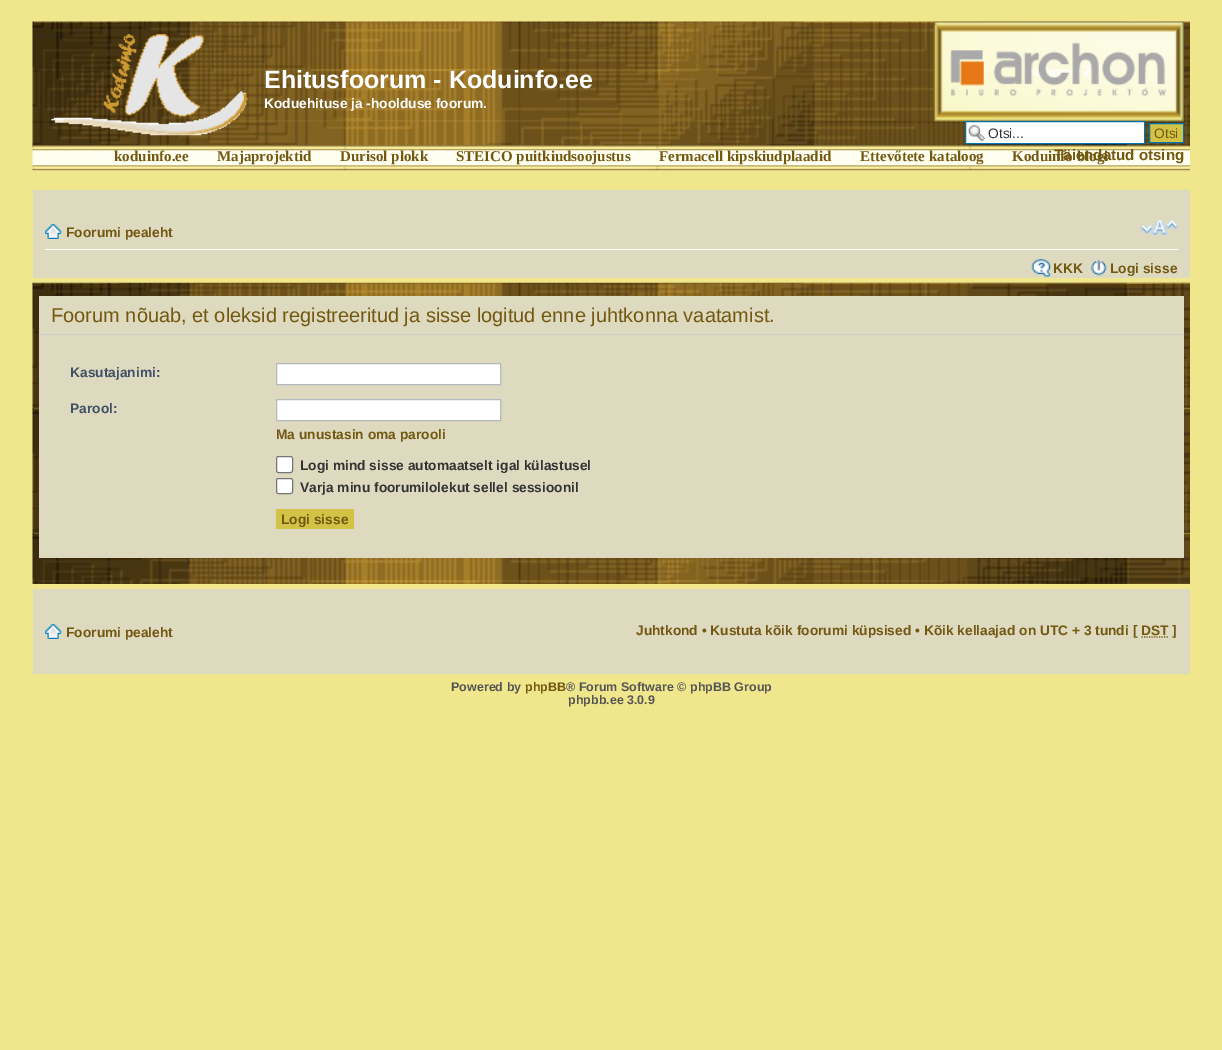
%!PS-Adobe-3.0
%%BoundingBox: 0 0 1222 1050
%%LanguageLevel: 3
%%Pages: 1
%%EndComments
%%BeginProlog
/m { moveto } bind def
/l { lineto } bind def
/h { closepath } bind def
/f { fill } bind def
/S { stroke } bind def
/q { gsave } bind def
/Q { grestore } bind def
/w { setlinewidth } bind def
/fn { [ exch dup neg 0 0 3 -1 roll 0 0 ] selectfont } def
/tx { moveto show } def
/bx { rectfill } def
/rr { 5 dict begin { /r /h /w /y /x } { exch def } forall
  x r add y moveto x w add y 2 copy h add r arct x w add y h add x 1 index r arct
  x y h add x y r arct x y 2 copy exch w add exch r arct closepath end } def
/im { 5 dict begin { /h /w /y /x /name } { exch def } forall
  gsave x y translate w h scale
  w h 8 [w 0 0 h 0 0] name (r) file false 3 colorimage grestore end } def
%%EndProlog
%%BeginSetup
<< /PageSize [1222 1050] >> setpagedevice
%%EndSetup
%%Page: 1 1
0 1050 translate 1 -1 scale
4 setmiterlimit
0.941 0.902 0.549 setrgbcolor
0 0 1222 1050 bx
(image0.raw) 32 21 1158 126 im
(image1.raw) 51 34 197 102 im
/LiberationSans-Bold 25 fn
1 setgray
(Ehitusfoorum - Koduinfo.ee) 264 88 tx
/LiberationSans-Bold 13.75 fn
(Koduehituse ja -hoolduse foorum.) 264 108 tx
(image2.raw) 933 21 251 101 im
(image3.raw) 32 145 1158 26 im
/LiberationSerif-Bold 15 fn
0.451 0.345 0.067 setrgbcolor
(koduinfo.ee) 114 161 tx
(Majaprojektid) 217 161 tx
(Durisol plokk) 340 161 tx
(STEICO puitkiudsoojustus) 456 161 tx
(Fermacell kipskiudplaadid) 659 161 tx
(Ettevőtete kataloog) 860 161 tx
(Koduinfo blogi) 1012 161 tx
1 setgray
966 122 178 21 bx
(image4.raw) 968 125 18 17 im
0 0.459 0.69 setrgbcolor
965.5 121.5 179 22 rectstroke
/LiberationSans-Regular 13.75 fn
0.2 setgray
(Otsi...) 988 138 tx
0.824 0.765 0.278 setrgbcolor
1149.5 123.5 m 1183.5 123.5 l 1183.5 142.5 l 1149.5 142.5 l h q f Q
0 0.459 0.69 setrgbcolor
S
0.451 0.345 0.067 setrgbcolor
(Otsi) 1154 138 tx
/LiberationSans-Bold 15.1 fn
(Täiendatud otsing) 1054 160 tx
0.867 0.855 0.749 setrgbcolor
33 190 1157 88 bx
1 setgray
45 249 1133 1 bx
(image5.raw) 45 224 17 15 im
/LiberationSans-Bold 13.75 fn
0.451 0.345 0.067 setrgbcolor
(Foorumi pealeht) 66 237 tx
(image6.raw) 1141 220 37 16 im
(image7.raw) 1031 259 21 18 im
(KKK) 1053 273 tx
(image8.raw) 1091 260 16 16 im
(Logi sisse) 1110 273 tx
(image9.raw) 32 282 1158 302 im
0.867 0.855 0.749 setrgbcolor
39 296 1145 262 bx
0.8 setgray
39 334 1145 1 bx
/LiberationSans-Regular 20 fn
0.451 0.345 0.067 setrgbcolor
(Foorum nõuab, et oleksid registreeritud ja sisse logitud enne juhtkonna vaatamist.) 51 322 tx
/LiberationSans-Bold 13.75 fn
0.259 0.314 0.404 setrgbcolor
(Kasutajanimi:) 70 377 tx
1 setgray
276.5 363.5 m 500.5 363.5 l 500.5 384.5 l 276.5 384.5 l h q f Q
0.706 0.729 0.753 setrgbcolor
S
0.259 0.314 0.404 setrgbcolor
(Parool:) 70 413 tx
1 setgray
276.5 399.5 m 500.5 399.5 l 500.5 420.5 l 276.5 420.5 l h q f Q
0.706 0.729 0.753 setrgbcolor
S
0.451 0.345 0.067 setrgbcolor
(Ma unustasin oma parooli) 276 439 tx
1 setgray
276.5 456.5 16 16 2 rr q f Q
0.463 setgray
S
0.2 setgray
(Logi mind sisse automaatselt igal külastusel) 300 470 tx
1 setgray
276.5 478.5 16 15 2 rr q f Q
0.463 setgray
S
0.2 setgray
(Varja minu foorumilolekut sellel sessioonil) 300 492 tx
0.824 0.765 0.278 setrgbcolor
276 509 78 20 bx
0.451 0.345 0.067 setrgbcolor
(Logi sisse) 281 524 tx
0.867 0.855 0.749 setrgbcolor
33 589 1157 85 bx
(image5.raw) 45 624 17 15 im
0.451 0.345 0.067 setrgbcolor
(Foorumi pealeht) 66 637 tx
(Juhtkond • Kustuta kõik foorumi küpsised • Kõik kellaajad on UTC + 3 tundi [ DST ]) 636 635 tx
1.2 w
[1.25 1.25] 0 setdash
1141.5 637 m 1169 637 l S
/LiberationSans-Bold 12.5 fn
0.333 setgray
(Powered by) 451 691 tx
0.451 0.345 0.067 setrgbcolor
(phpBB) 525 691 tx
0.333 setgray
(® Forum Software © phpBB Group) 566 691 tx
(phpbb.ee 3.0.9) 568 704 tx
showpage
%%EOF
